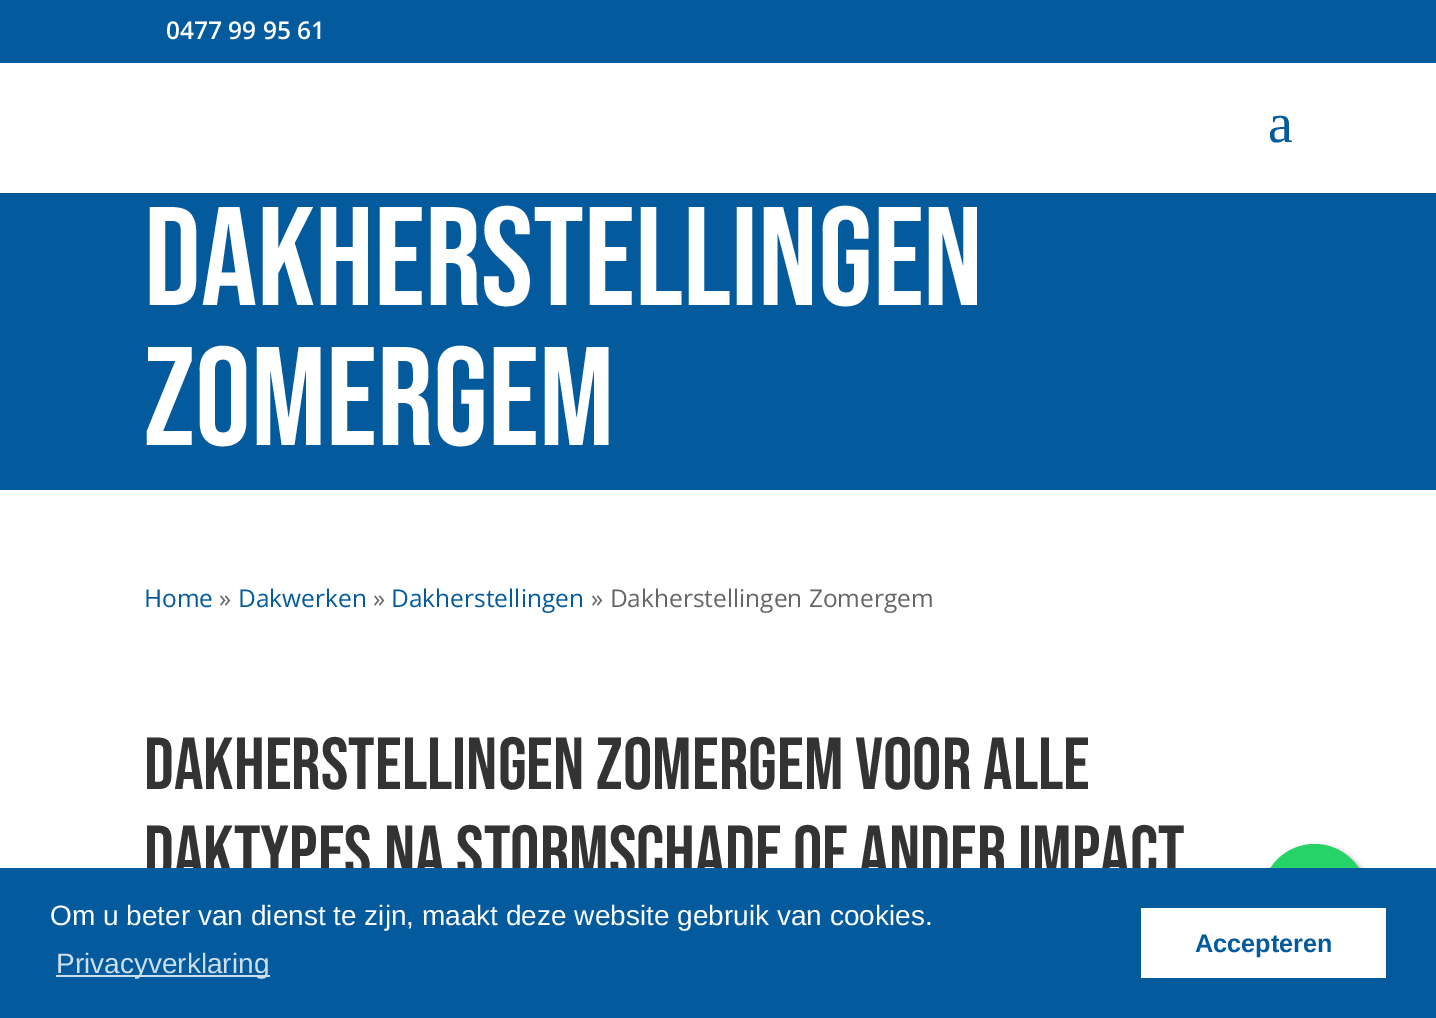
%!PS-Adobe-3.0
%%BoundingBox: 0 0 1436 1018
%%LanguageLevel: 3
%%Pages: 1
%%EndComments
%%BeginProlog
/m { moveto } bind def
/l { lineto } bind def
/h { closepath } bind def
/f { fill } bind def
/fn { [ exch dup neg 0 0 3 -1 roll 0 0 ] selectfont } def
/tx { moveto show } def
/bx { rectfill } def
/al { dup .setfillconstantalpha .setstrokeconstantalpha } def
/ci { newpath 0 360 arc closepath } def
/rr { 5 dict begin { /r /h /w /y /x } { exch def } forall
  x r add y moveto x w add y 2 copy h add r arct x w add y h add x 1 index r arct
  x y h add x y r arct x y 2 copy exch w add exch r arct closepath end } def
/sh { 12 dict begin { /a /b /q /h /w /y /x } { exch def } forall gsave /was 0 def
  9 -2 -9 { dup b mul 4 div /e exch def 1 sub .425 mul 2.718 exch exp 1 add a .99 .min exch div /now exch def
    1 1 now sub 1 was sub div sub al /was now def
    w h .min e 2 mul add 0 gt { x e sub y e sub w e 2 mul add h e 2 mul add
      q e add b .6 mul add w h .min 2 div e add .min 0 .max rr fill } if } for grestore end } def
%%EndProlog
%%BeginSetup
<< /PageSize [1436 1018] /PageUsesTransparency true >> setpagedevice
%%EndSetup
%%Page: 1 1
0 .pushpdf14devicefilter
0 1018 translate 1 -1 scale
4 setmiterlimit
1 setgray
0 0 1436 1018 bx
0.012 0.357 0.62 setrgbcolor
0 0 1436 63 bx
/OpenSans-SemiBold 24.5 fn
1 setgray
(0477 99 95 61) 166 39 tx
0.012 0.322 0.557 setrgbcolor
0 192 m 0 194 l 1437 194 l 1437 54 l 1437 192 l h f
1 setgray
0 192 1436 1 bx
/LiberationSerif-Regular 56 fn
0.012 0.357 0.62 setrgbcolor
(a) 1268 142 tx
0 194 1436 296 bx
/BebasNeue-Regular 140 fn
1 setgray
(Dakherstellingen) 144 305 tx
(Zomergem) 144 445 tx
/OpenSans-Regular 24.5 fn
0.012 0.357 0.62 setrgbcolor
(Home) 144 607 tx
0.4 setgray
(») 219 607 tx
0.012 0.357 0.62 setrgbcolor
(Dakwerken) 238 607 tx
0.4 setgray
(») 373 607 tx
0.012 0.357 0.62 setrgbcolor
(Dakherstellingen) 391 607 tx
0.4 setgray
(» Dakherstellingen Zomergem) 591 607 tx
/BebasNeue-Regular 73.5 fn
0.2 setgray
(Dakherstellingen Zomergem voor alle) 144 789 tx
(daktypes na stormschade of ander impact) 144 877 tx
0.6 setgray
1265 847 105 105 52.5 2.5 1 sh
0.145 0.827 0.4 setrgbcolor
1314.5 896.5 52.5 ci f
0.012 0.357 0.62 setrgbcolor
0 868 1436 150 bx
/LiberationSans-Regular 28 fn
1 setgray
(Om u beter van dienst te zijn, maakt deze website gebruik van cookies.) 50 925 tx
0.804 0.871 0.925 setrgbcolor
56 975 214 2 bx
(Privacyverklaring) 56 973 tx
1 setgray
1141 908 245 70 bx
/LiberationSans-Bold 25.25 fn
0.012 0.357 0.62 setrgbcolor
(Accepteren) 1195 952 tx
.poppdf14devicefilter showpage
%%EOF
